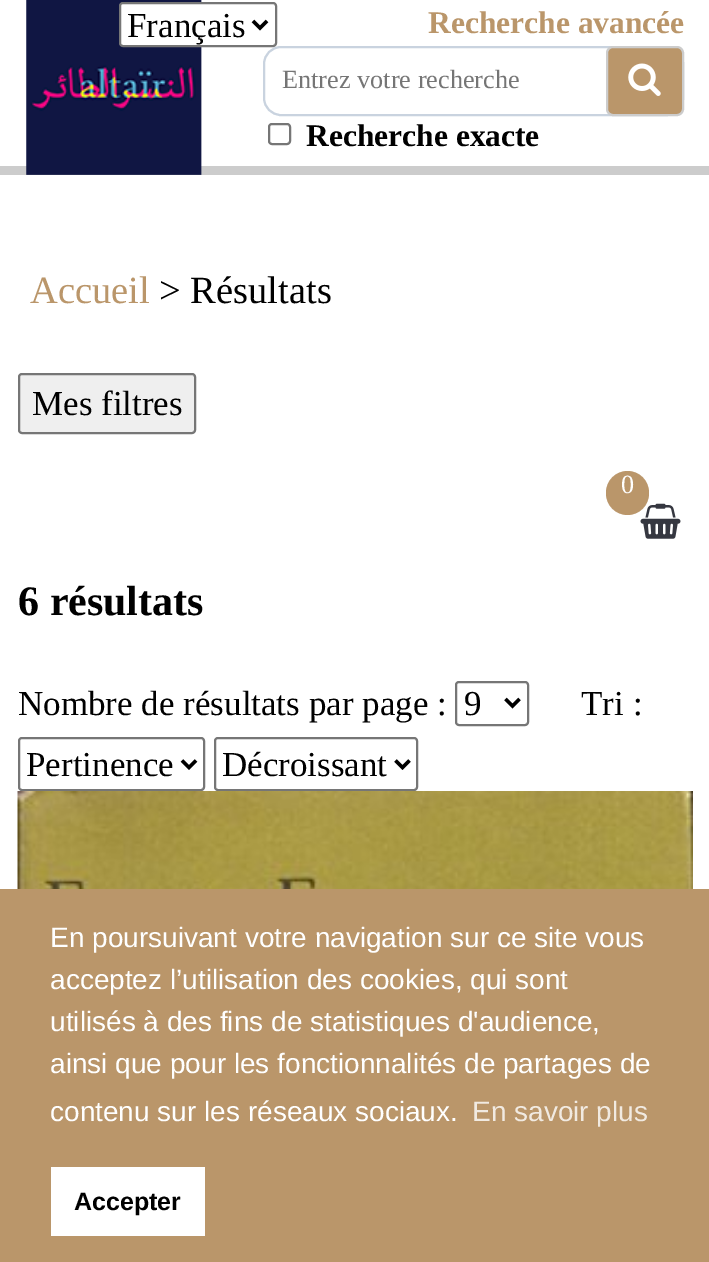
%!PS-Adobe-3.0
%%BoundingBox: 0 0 709 1262
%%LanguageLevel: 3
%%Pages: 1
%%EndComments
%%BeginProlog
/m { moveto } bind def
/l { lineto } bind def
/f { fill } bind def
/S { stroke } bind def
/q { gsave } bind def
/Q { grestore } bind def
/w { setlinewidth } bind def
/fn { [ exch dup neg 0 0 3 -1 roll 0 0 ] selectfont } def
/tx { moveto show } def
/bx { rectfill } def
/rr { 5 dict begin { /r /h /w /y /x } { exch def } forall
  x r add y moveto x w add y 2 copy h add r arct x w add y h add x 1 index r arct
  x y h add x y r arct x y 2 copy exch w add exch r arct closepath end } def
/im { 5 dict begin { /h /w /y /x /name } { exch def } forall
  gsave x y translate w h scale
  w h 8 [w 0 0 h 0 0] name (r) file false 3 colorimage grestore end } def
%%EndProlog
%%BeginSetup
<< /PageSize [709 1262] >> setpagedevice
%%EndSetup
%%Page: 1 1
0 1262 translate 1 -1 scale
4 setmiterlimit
1 setgray
0 0 709 1262 bx
0.8 setgray
0 166 709 9 bx
(image0.raw) 26 0 176 175 im
/LiberationSerif-Bold 31.5 fn
0.729 0.588 0.416 setrgbcolor
(Recherche avancée) 428 33 tx
0.788 0.827 0.875 setrgbcolor
2 w
264 47 419 68 17 rr S
/LiberationSerif-Regular 26.25 fn
0.459 setgray
(Entrez votre recherche) 282 88 tx
0.729 0.588 0.416 setrgbcolor
607 47 76 68 6 rr q f Q
0.8 setgray
S
(image1.raw) 628 63 33 33 im
0.463 setgray
269 124 21 20 3 rr S
/LiberationSerif-Bold 31.5 fn
0 setgray
(Recherche exacte) 306 146 tx
1 setgray
120 3 156 43 3 rr q f Q
0.463 setgray
S
0 setgray
3.5 w
253 21 m 260 28 l 267 21 l S
/LiberationSerif-Regular 35 fn
(Français) 127 37 tx
/LiberationSerif-Regular 38.5 fn
0.729 0.588 0.416 setrgbcolor
(Accueil) 30 303 tx
0 setgray
(> Résultats) 159 303 tx
0.937 setgray
19 374 176 59 3 rr q f Q
0.463 setgray
2 w
S
/LiberationSerif-Regular 35 fn
0 setgray
(Mes filtres) 32 415 tx
(image2.raw) 640 503 41 36 im
0.729 0.588 0.416 setrgbcolor
606 471 43 44 21.5 rr f
/LiberationSerif-Regular 26.25 fn
1 setgray
(0) 621 493 tx
/LiberationSerif-Bold 42 fn
0 setgray
(6 résultats) 18 615 tx
/LiberationSerif-Regular 35 fn
(Nombre de résultats par page :) 18 715 tx
0.463 setgray
456 682 72 43 3 rr S
0 setgray
3.5 w
505.5 699 m 512.5 706 l 519.5 699 l S
(9) 464 715 tx
(Tri :) 581 715 tx
0.463 setgray
2 w
19 738 185 52 3 rr S
0 setgray
3.5 w
182 760.5 m 189 767.5 l 196 760.5 l S
(Pertinence) 26 776 tx
0.463 setgray
2 w
215 738 202 52 3 rr S
0 setgray
3.5 w
395.5 760.5 m 402.5 767.5 l 409.5 760.5 l S
(Décroissant) 222 776 tx
(image3.raw) 17 791 676 98 im
0.729 0.588 0.416 setrgbcolor
0 889 709 373 bx
/LiberationSans-Regular 28 fn
1 setgray
(En poursuivant votre navigation sur ce site vous) 50 947 tx
(acceptez l’utilisation des cookies, qui sont) 50 989 tx
(utilisés à des fins de statistiques d'audience,) 50 1031 tx
(ainsi que pour les fonctionnalités de partages de) 50 1073 tx
(contenu sur les réseaux sociaux.) 50 1121 tx
0.945 0.918 0.882 setrgbcolor
(En savoir plus) 472 1121 tx
1 setgray
51 1167 154 69 bx
/LiberationSans-Bold 25 fn
0 setgray
(Accepter) 74 1210 tx
showpage
%%EOF
